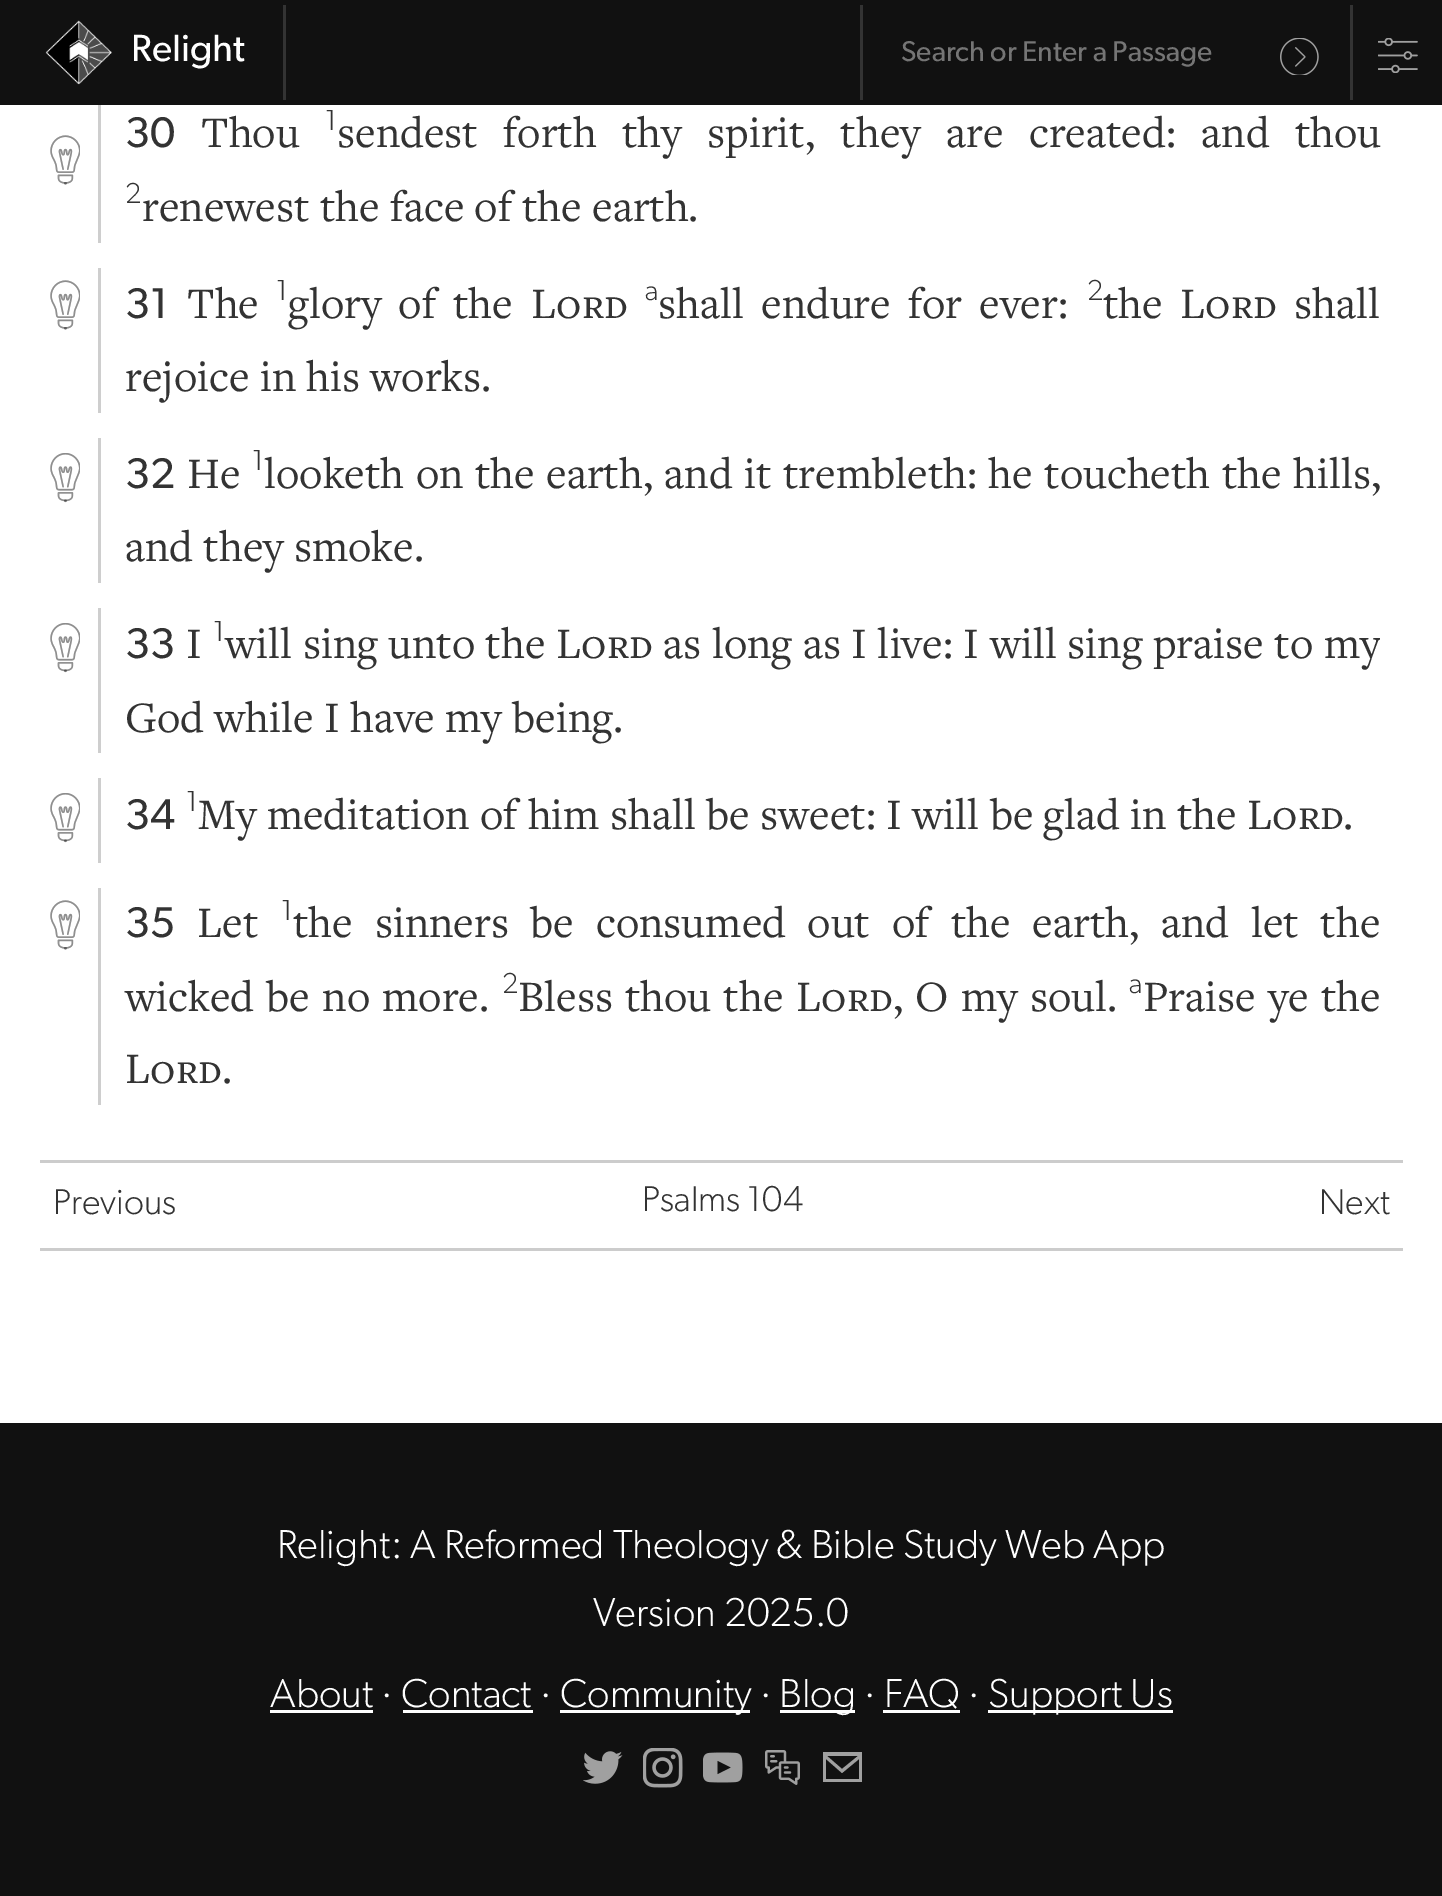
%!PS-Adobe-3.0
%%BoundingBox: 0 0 1442 1896
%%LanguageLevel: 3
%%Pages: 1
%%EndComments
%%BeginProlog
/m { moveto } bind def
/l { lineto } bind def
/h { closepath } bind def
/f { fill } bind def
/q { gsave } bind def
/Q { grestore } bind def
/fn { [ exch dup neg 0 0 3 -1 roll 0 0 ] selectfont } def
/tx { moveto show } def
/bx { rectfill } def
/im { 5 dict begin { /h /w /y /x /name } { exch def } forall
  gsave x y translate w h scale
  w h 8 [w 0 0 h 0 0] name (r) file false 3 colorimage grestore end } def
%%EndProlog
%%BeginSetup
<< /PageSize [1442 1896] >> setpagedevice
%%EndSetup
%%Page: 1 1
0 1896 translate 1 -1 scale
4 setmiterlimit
1 setgray
0 0 1442 1896 bx
0.808 setgray
98 98 3 145 bx
0.067 setgray
0 0 1442 105 bx
0.2 setgray
283 5 3 95 bx
(image0.raw) 45 20 67 65 im
/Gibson-Regular 38 fn
1 setgray
(Relight) 131 61 tx
0.2 setgray
860 5 3 95 bx
/Gibson-Regular 28.75 fn
0.459 setgray
(Search or Enter a Passage) 901 61 tx
(image1.raw) 1280 38 39 37 im
0.2 setgray
1350 5 3 95 bx
(image2.raw) 1378 38 40 35 im
(image3.raw) 50 135 30 50 im
/Gibson-Regular 43 fn
(30) 125 147 tx
/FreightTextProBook-Regular 45 fn
(Thou) 201 147 tx
/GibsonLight-Light 29 fn
(1) 325 130 tx
/FreightTextProBook-Regular 45 fn
337 147 m 15.25 0 32 (sendest forth thy spirit, they are created: and thou) widthshow
/GibsonLight-Light 29 fn
(2) 125 203 tx
/FreightTextProBook-Regular 45 fn
(renewest the face of the earth.) 142 221 tx
(image3.raw) 50 280 30 50 im
0.808 setgray
98 268 3 145 bx
/Gibson-Regular 43 fn
0.2 setgray
(31) 125 318 tx
/FreightTextProBook-Regular 45 fn
(The) 187 318 tx
/GibsonLight-Light 29 fn
(1) 276 300 tx
/FreightTextProBook-Regular 45 fn
288 318 m 7 0 32 (glory of the) widthshow
/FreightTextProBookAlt-Regular 45 fn
(Lord) 531 318 tx
/GibsonLight-Light 29 fn
(a) 645 300 tx
/FreightTextProBook-Regular 45 fn
658 318 m 7 0 32 (shall endure for ever:) widthshow
/GibsonLight-Light 29 fn
(2) 1087 300 tx
/FreightTextProBook-Regular 45 fn
(the) 1103 318 tx
/FreightTextProBookAlt-Regular 45 fn
(Lord) 1180 318 tx
/FreightTextProBook-Regular 45 fn
(shall) 1294 318 tx
(rejoice in his works.) 125 391 tx
(image4.raw) 50 453 30 50 im
0.808 setgray
98 438 3 145 bx
/Gibson-Regular 43 fn
0.2 setgray
(32) 125 488 tx
/FreightTextProBook-Regular 45 fn
(He) 187 488 tx
/GibsonLight-Light 29 fn
(1) 252 470 tx
/FreightTextProBook-Regular 45 fn
264 488 m 1.25 0 32 (looketh on the earth, and it trembleth: he toucheth the hills,) widthshow
(and they smoke.) 125 561 tx
(image4.raw) 50 623 30 50 im
0.808 setgray
98 608 3 145 bx
/Gibson-Regular 43 fn
0.2 setgray
(33) 125 658 tx
/FreightTextProBook-Regular 45 fn
(I) 186 658 tx
/GibsonLight-Light 29 fn
(1) 213 641 tx
/FreightTextProBook-Regular 45 fn
225 658 m 0.25 0 32 (will sing unto the) widthshow
/FreightTextProBookAlt-Regular 45 fn
(Lord) 556 658 tx
q
100 608 1280 145 rectclip
/FreightTextProBook-Regular 45 fn
663 658 m 0.25 0 32 (as long as I live: I will sing praise to my) widthshow
Q
/FreightTextProBook-Regular 45 fn
(God while I have my being.) 125 732 tx
(image4.raw) 50 793 30 50 im
0.808 setgray
98 778 3 85 bx
/Gibson-Regular 43 fn
0.2 setgray
(34) 125 829 tx
/GibsonLight-Light 29 fn
(1) 186 811 tx
/FreightTextProBook-Regular 45 fn
(My meditation of him shall be sweet: I will be glad in the) 198 829 tx
/FreightTextProBookAlt-Regular 45 fn
(Lord) 1247 829 tx
/FreightTextProBook-Regular 45 fn
(.) 1343 829 tx
(image3.raw) 50 900 30 50 im
0.808 setgray
98 888 3 217 bx
/Gibson-Regular 43 fn
0.2 setgray
(35) 125 937 tx
/FreightTextProBook-Regular 45 fn
(Let) 197 937 tx
/GibsonLight-Light 29 fn
(1) 281 920 tx
/FreightTextProBook-Regular 45 fn
293 937 m 11.5 0 32 (the sinners be consumed out of the earth, and let the) widthshow
125 1011 m 2 0 32 (wicked be no more.) widthshow
/GibsonLight-Light 29 fn
(2) 502 993 tx
/FreightTextProBook-Regular 45 fn
518 1011 m 2 0 32 (Bless thou the) widthshow
/FreightTextProBookAlt-Regular 45 fn
(Lord) 796 1011 tx
/FreightTextProBook-Regular 45 fn
893 1011 m 2 0 32 (, O my soul.) widthshow
/GibsonLight-Light 29 fn
(a) 1129 993 tx
/FreightTextProBook-Regular 45 fn
1143 1011 m 2 0 32 (Praise ye the) widthshow
/FreightTextProBookAlt-Regular 45 fn
(Lord) 125 1083 tx
/FreightTextProBook-Regular 45 fn
(.) 222 1083 tx
0.8 setgray
40 1160 1363 3 bx
40 1248 1363 3 bx
/GibsonLight-Light 36 fn
0.2 setgray
(Previous) 53 1214 tx
(Psalms 104) 642 1211 tx
(Next) 1319 1214 tx
0.067 setgray
0 1423 1442 473 bx
/GibsonLight-Light 40.5 fn
1 setgray
(Relight: A Reformed Theology & Bible Study Web App) 277 1558 tx
(Version 2025.0) 593 1626 tx
(About · Contact ·) 270 1707 tx
270 1710 103 3 bx
560 1710 190 3 bx
(Community ·) 560 1707 tx
780 1710 75 3 bx
(Blog · FAQ ·) 779 1707 tx
988 1710 185 3 bx
(Support Us) 988 1707 tx
403 1710 130 3 bx
883 1710 77 3 bx
(image5.raw) 583 1751 40 33 im
(image6.raw) 643 1748 40 40 im
(image7.raw) 703 1752 40 31 im
(image8.raw) 765 1750 35 35 im
q
823 1748 40 40 rectclip
0.627 setgray
822 1752 m 822 1782 l 862 1782 l 862 1752 l h 858 1756 m 842 1769 l 827 1756 l h 826 1779 m 826 1759 l 842 1773 l 859 1759 l 859 1779 l h f
Q
showpage
%%EOF
